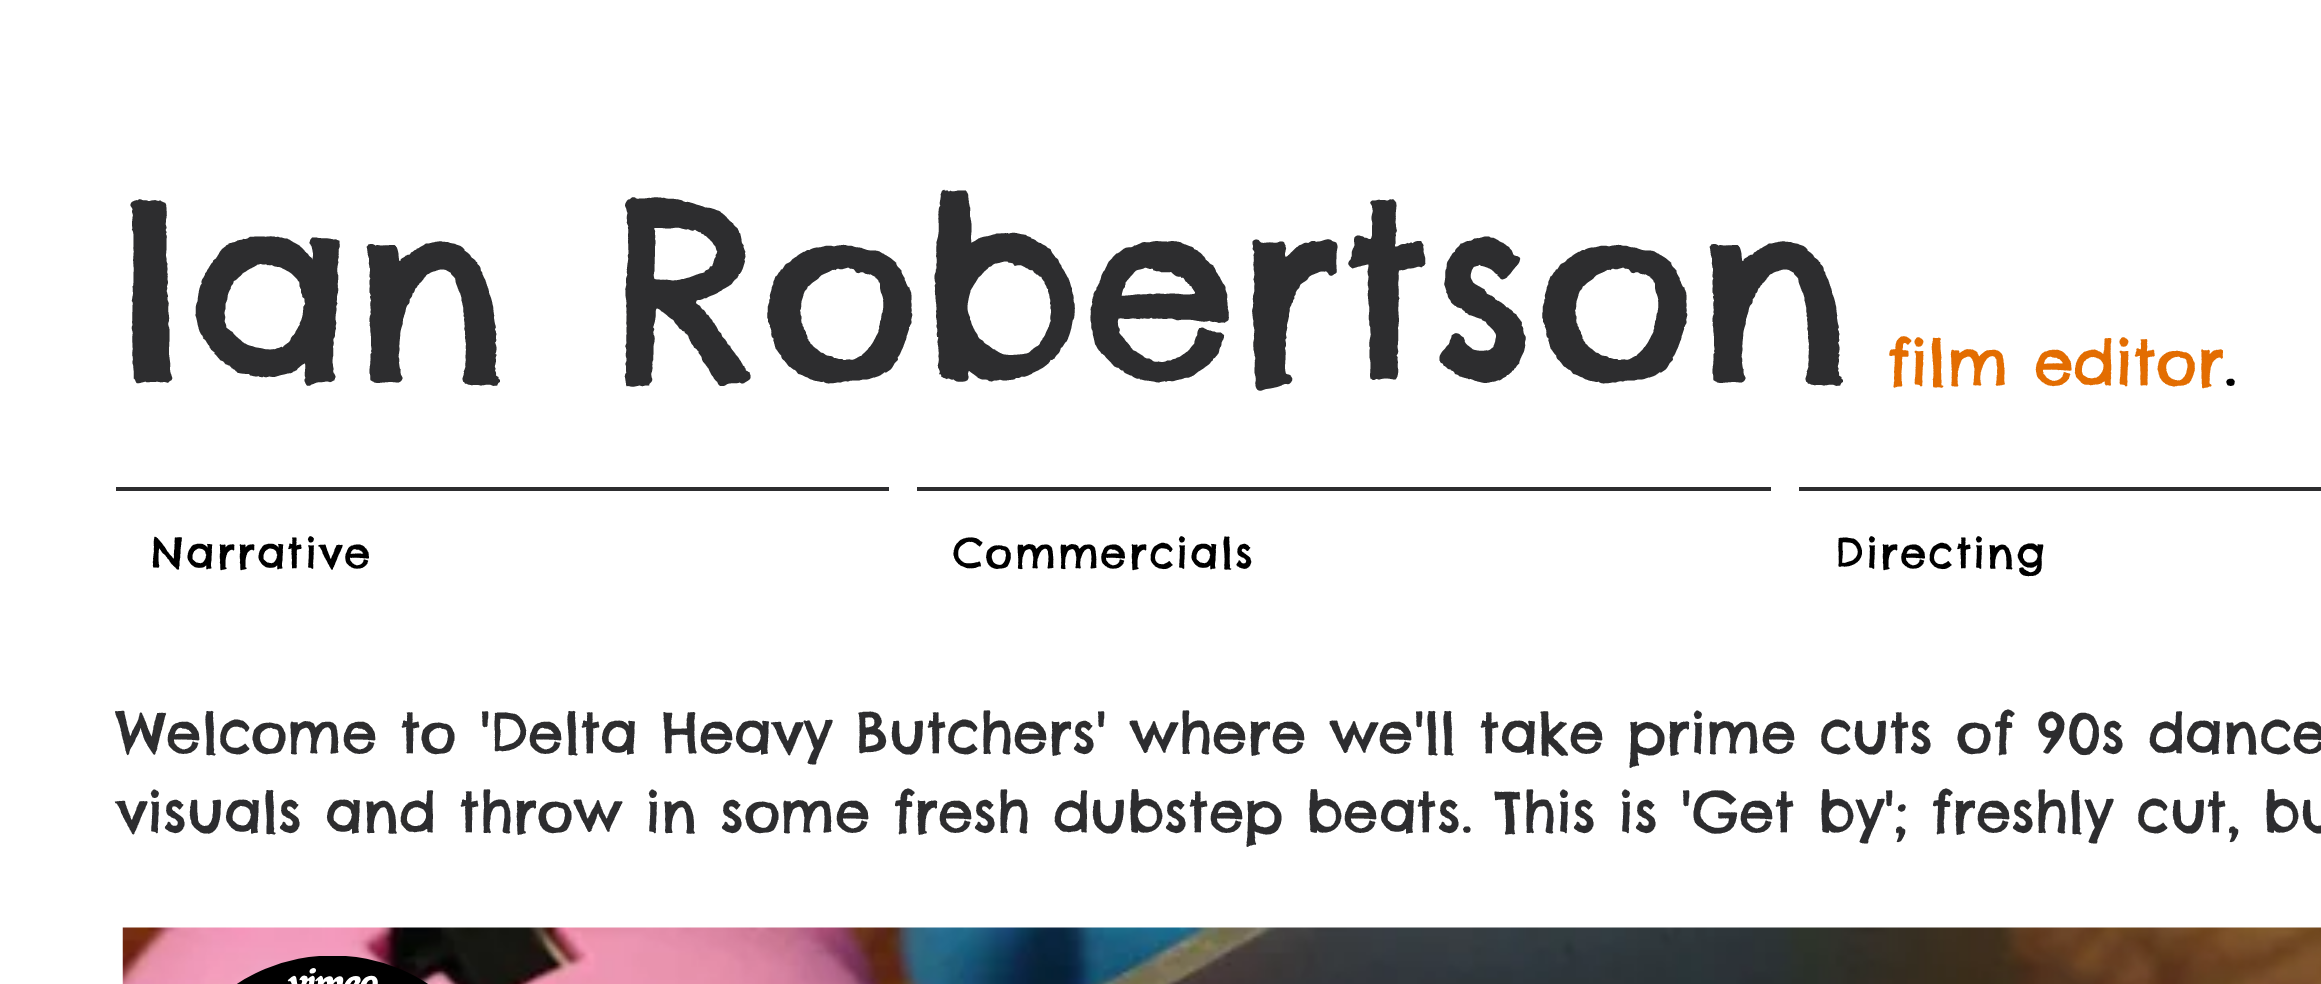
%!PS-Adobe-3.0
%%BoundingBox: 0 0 2321 984
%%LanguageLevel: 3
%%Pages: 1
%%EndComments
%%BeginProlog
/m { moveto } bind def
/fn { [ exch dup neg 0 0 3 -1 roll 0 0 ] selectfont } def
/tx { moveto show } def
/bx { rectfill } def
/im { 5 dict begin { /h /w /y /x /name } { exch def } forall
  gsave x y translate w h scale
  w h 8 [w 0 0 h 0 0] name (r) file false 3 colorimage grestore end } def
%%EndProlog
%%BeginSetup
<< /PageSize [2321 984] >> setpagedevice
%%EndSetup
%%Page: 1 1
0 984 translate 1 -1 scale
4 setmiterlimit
1 setgray
0 0 2321 984 bx
/ChelseaMarket-Regular 245 fn
0.176 0.176 0.184 setrgbcolor
(Ian Robertson) 116 378 tx
/ChelseaMarket-Regular 63 fn
0.89 0.427 0.004 setrgbcolor
(film editor) 1887 385 tx
0 setgray
(.) 2224 385 tx
0.176 0.176 0.184 setrgbcolor
116 487 773 4 bx
/ChelseaMarket-Regular 42 fn
0 setgray
151 568 m 2.1 0 (Narrative) ashow
0.176 0.176 0.184 setrgbcolor
917 487 854 4 bx
0 setgray
953 568 m 2.1 0 (Commercials) ashow
0.176 0.176 0.184 setrgbcolor
1799 487 522 4 bx
0 setgray
1835 568 m 2.1 0 (Directing) ashow
/ChelseaMarket-Regular 56 fn
0.176 0.176 0.184 setrgbcolor
(Welcome to 'Delta Heavy Butchers' where we'll take prime cuts of 90s dance) 116 753 tx
(visuals and throw in some fresh dubstep beats. This is 'Get by'; freshly cut, bu) 116 832 tx
(image0.raw) 122 927 2199 57 im
showpage
%%EOF
